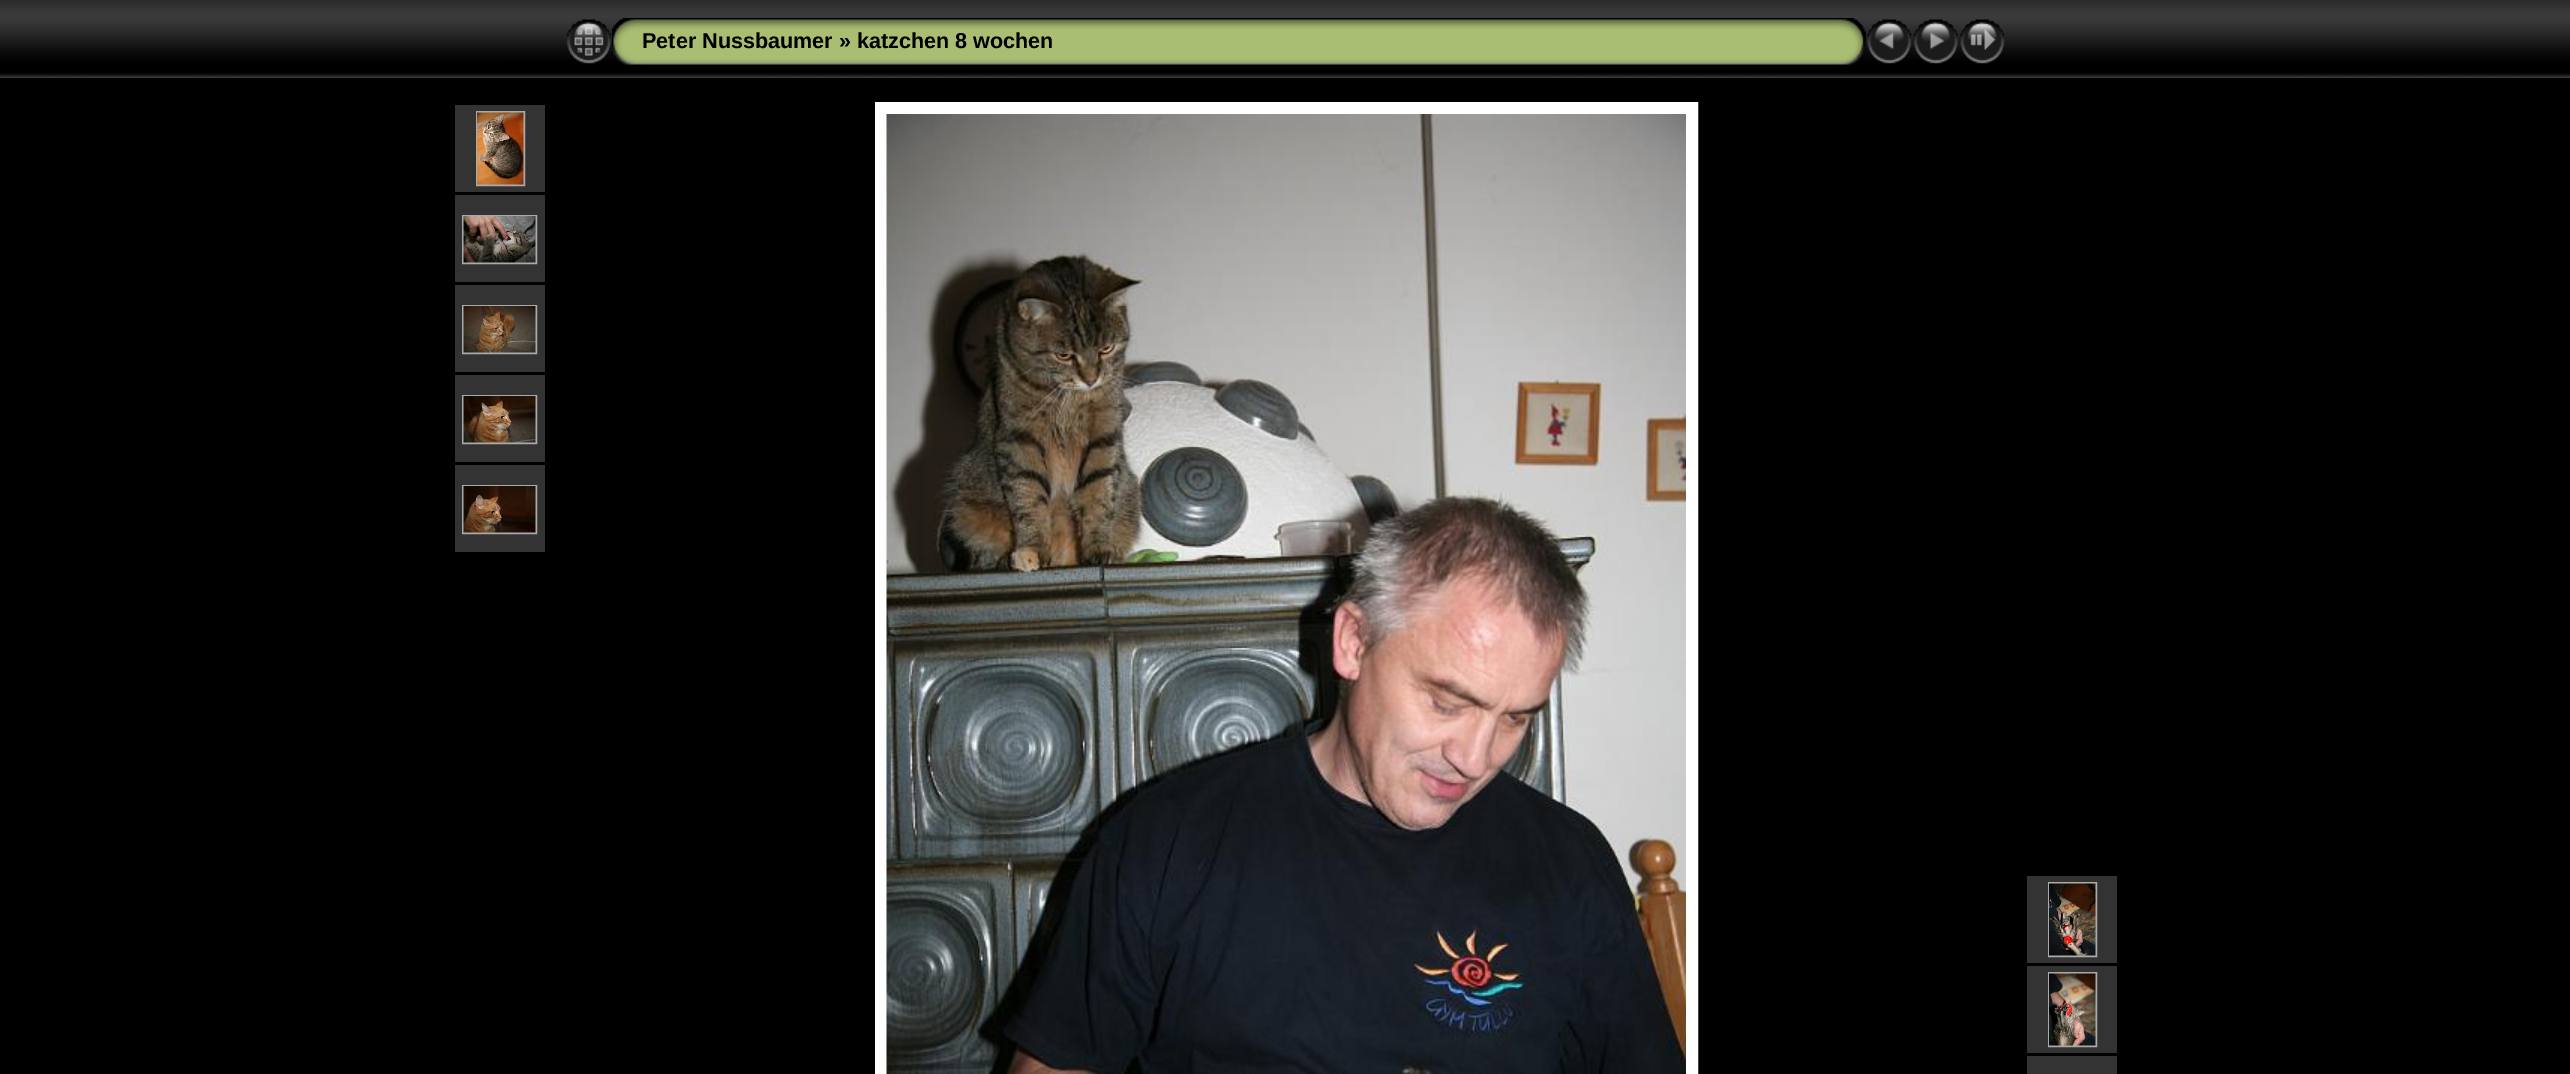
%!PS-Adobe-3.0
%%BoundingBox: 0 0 2570 1074
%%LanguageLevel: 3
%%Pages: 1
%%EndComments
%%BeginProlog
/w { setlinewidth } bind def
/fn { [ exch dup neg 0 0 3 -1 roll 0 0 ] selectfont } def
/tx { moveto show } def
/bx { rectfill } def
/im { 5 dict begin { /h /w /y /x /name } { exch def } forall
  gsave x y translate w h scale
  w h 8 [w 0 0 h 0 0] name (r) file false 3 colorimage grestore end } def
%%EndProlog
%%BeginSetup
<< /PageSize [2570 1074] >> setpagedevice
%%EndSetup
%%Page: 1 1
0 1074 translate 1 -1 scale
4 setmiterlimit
0 setgray
0 0 2570 1074 bx
(image0.raw) 0 0 2570 78 im
(image1.raw) 566 19 45 45 im
(image2.raw) 612 18 30 47 im
(image3.raw) 642 18 1194 47 im
/LiberationSans-Bold 21.6 fn
(Peter Nussbaumer » katzchen 8 wochen) 642 48 tx
(image4.raw) 1836 18 30 47 im
(image5.raw) 1867 19 45 45 im
(image6.raw) 1913 19 45 45 im
(image7.raw) 1960 19 45 45 im
0.2 setgray
455 105 90 87 bx
0.667 setgray
2 w
477 112 47 73 rectstroke
(image8.raw) 477 112 47 73 im
0.2 setgray
455 195 90 87 bx
0.667 setgray
463 216 73 47 rectstroke
(image9.raw) 463 216 73 47 im
0.2 setgray
455 285 90 87 bx
0.667 setgray
463 306 73 47 rectstroke
(image10.raw) 463 306 73 47 im
0.2 setgray
455 375 90 87 bx
0.667 setgray
463 396 73 47 rectstroke
(image11.raw) 463 396 73 47 im
0.2 setgray
455 465 90 87 bx
0.667 setgray
463 486 73 47 rectstroke
(image12.raw) 463 486 73 47 im
1 setgray
12 w
881 108 811 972 rectstroke
(image13.raw) 886 114 800 960 im
0.2 setgray
2027 876 90 87 bx
0.667 setgray
2 w
2049 883 47 73 rectstroke
(image14.raw) 2049 883 47 73 im
0.2 setgray
2027 966 90 87 bx
0.667 setgray
2049 973 47 73 rectstroke
(image15.raw) 2049 973 47 73 im
0.2 setgray
2027 1056 90 18 bx
showpage
%%EOF
